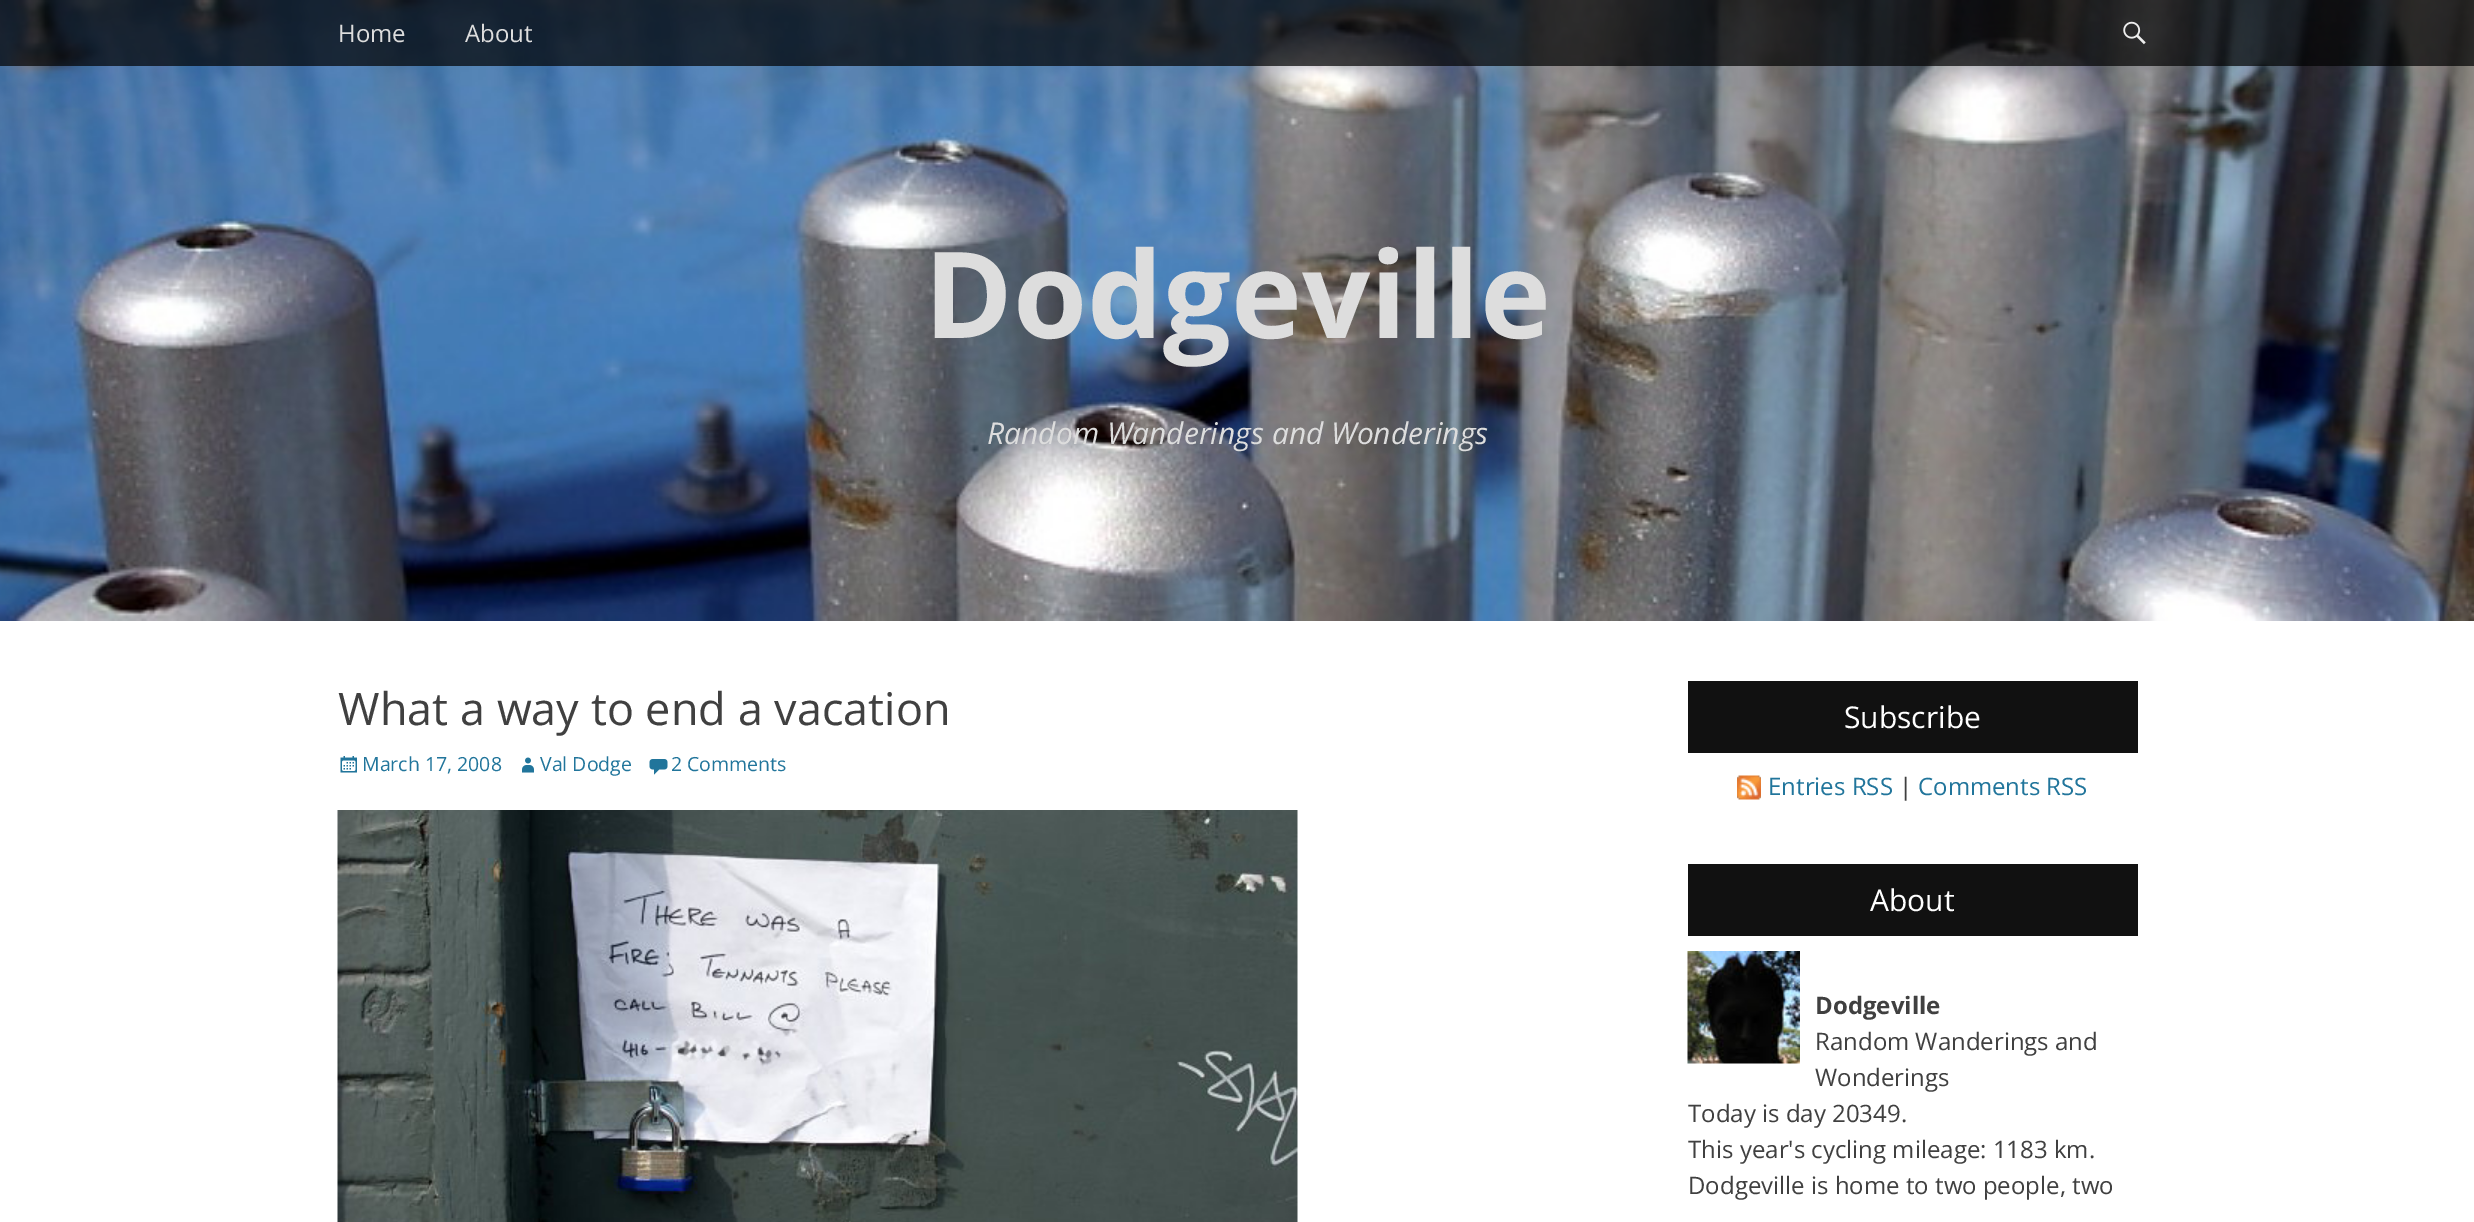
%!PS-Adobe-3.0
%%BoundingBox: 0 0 2474 1222
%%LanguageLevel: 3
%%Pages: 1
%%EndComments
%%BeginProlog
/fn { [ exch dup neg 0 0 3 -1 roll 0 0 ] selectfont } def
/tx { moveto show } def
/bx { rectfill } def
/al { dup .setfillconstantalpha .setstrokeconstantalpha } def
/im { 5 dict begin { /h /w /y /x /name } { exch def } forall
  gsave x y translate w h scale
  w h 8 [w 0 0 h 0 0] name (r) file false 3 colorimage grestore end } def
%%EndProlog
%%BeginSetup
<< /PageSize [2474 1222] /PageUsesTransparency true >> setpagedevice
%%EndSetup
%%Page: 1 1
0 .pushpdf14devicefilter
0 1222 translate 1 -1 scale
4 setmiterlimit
1 setgray
0 0 2474 1222 bx
(image1.raw) 0 0 2474 621 im
0.7 al
0 setgray
0 0 2474 66 bx
/OpenSans-Regular 24 fn
1 al
0.867 setgray
(Home) 338 42 tx
(About) 465 42 tx
(image0.raw) 2123 21 23 24 im
/OpenSans-Bold 120 fn
(Dodgeville) 924 338 tx
/OpenSans-Italic 30 fn
(Random Wanderings and Wonderings) 987 444 tx
/OpenSans-Regular 45 fn
0.251 setgray
(What a way to end a vacation) 338 725 tx
(image2.raw) 340 756 17 17 im
/OpenSans-Regular 19.5 fn
0.129 0.459 0.608 setrgbcolor
(March 17, 2008) 362 771 tx
(image3.raw) 522 757 12 16 im
(Val Dodge) 540 771 tx
(image4.raw) 649 759 19 16 im
(2 Comments) 671 771 tx
(image5.raw) 337 810 961 412 im
0.067 setgray
1688 681 450 72 bx
/OpenSans-Regular 30 fn
1 setgray
(Subscribe) 1844 728 tx
(image6.raw) 1737 775 24 25 im
/OpenSans-Regular 24 fn
0.129 0.459 0.608 setrgbcolor
(Entries RSS) 1768 795 tx
0.251 setgray
(|) 1899 795 tx
0.129 0.459 0.608 setrgbcolor
(Comments RSS) 1918 795 tx
0.067 setgray
1688 864 450 72 bx
/OpenSans-Regular 30 fn
1 setgray
(About) 1870 911 tx
(image7.raw) 1687 951 113 113 im
/OpenSans-Bold 24 fn
0.251 setgray
(Dodgeville) 1815 1014 tx
/OpenSans-Regular 24 fn
(Random Wanderings and) 1815 1050 tx
(Wonderings) 1815 1086 tx
(Today is day 20349.) 1688 1122 tx
(This year's cycling mileage: 1183 km.) 1688 1158 tx
(Dodgeville is home to two people, two) 1688 1194 tx
.poppdf14devicefilter showpage
%%EOF
